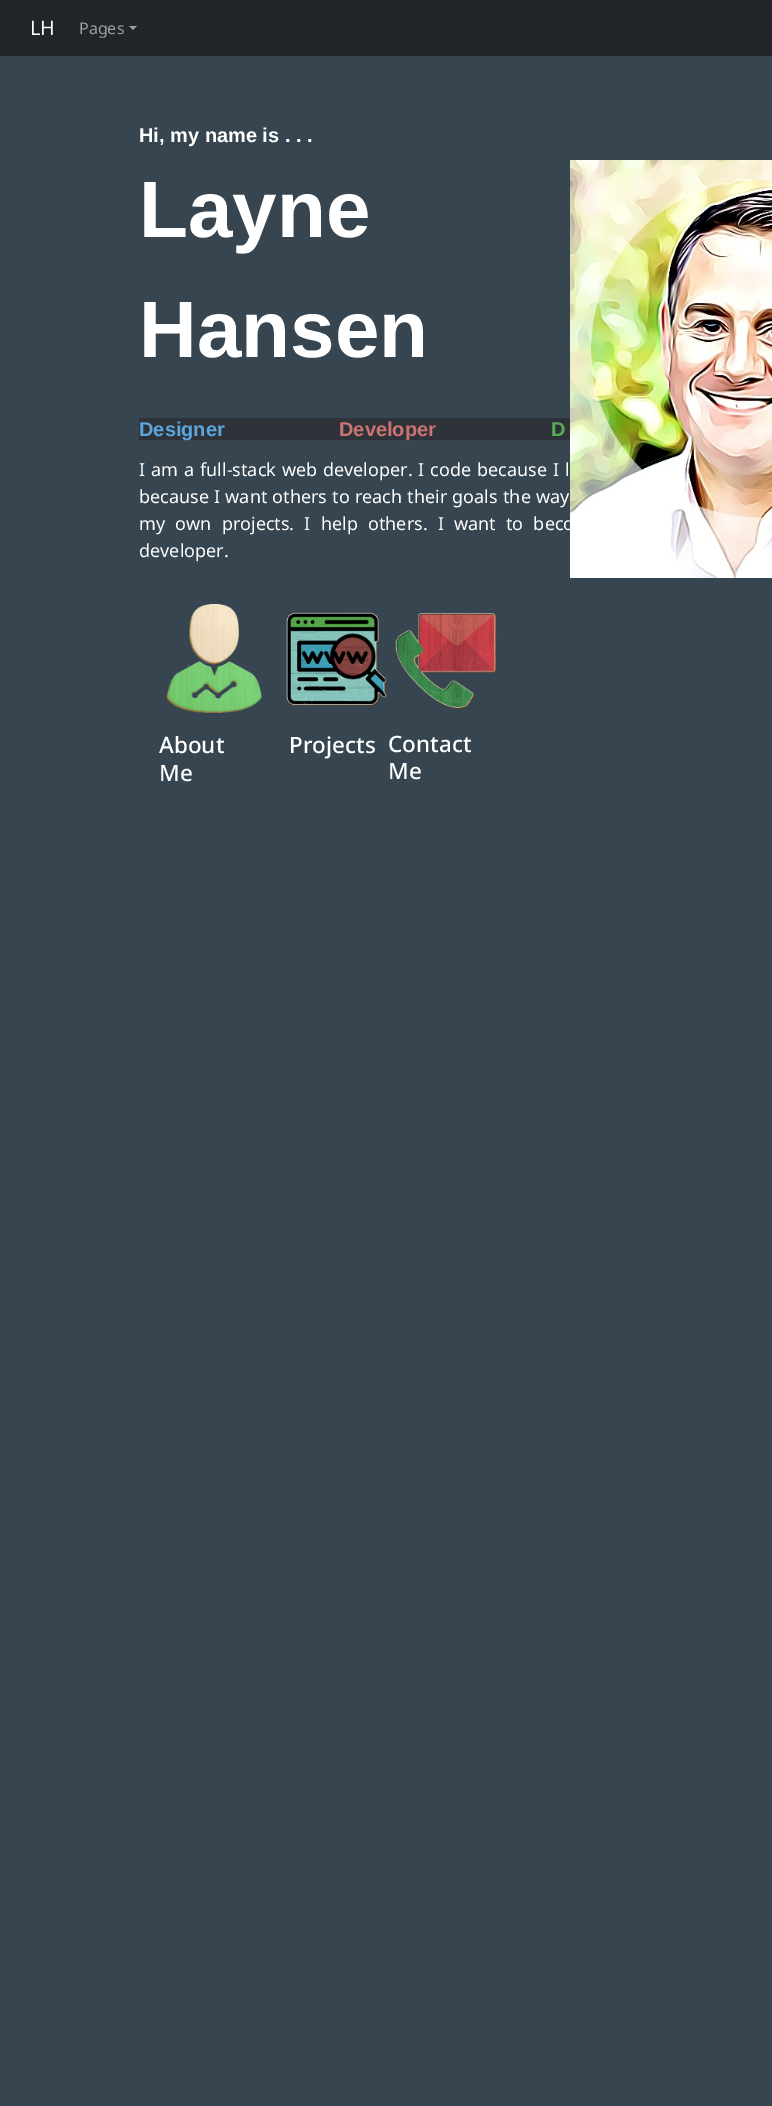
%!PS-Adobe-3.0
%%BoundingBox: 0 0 772 2106
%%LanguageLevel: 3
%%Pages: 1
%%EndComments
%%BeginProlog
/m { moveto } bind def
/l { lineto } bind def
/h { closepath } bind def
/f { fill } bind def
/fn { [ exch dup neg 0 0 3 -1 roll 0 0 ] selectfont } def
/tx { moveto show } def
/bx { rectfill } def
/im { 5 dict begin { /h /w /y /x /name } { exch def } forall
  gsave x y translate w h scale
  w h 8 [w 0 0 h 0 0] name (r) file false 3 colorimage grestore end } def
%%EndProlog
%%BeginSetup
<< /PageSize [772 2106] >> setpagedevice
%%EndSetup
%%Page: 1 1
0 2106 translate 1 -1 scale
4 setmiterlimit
0.212 0.271 0.31 setrgbcolor
0 0 772 2106 bx
0.129 0.145 0.161 setrgbcolor
0 0 772 56 bx
/NotoSans-Regular 20 fn
1 setgray
(LH) 30 35 tx
/NotoSans-Regular 16 fn
0.608 0.616 0.624 setrgbcolor
(Pages) 79 34 tx
129 26 m 137 26 l 133 30 l h f
/LiberationSans-Bold 20 fn
1 setgray
(Hi, my name is . . .) 139 142 tx
/LiberationSans-Bold 80 fn
(Layne) 139 237 tx
(Hansen) 139 357 tx
0.176 0.2 0.22 setrgbcolor
139 418 431 22 bx
/LiberationSans-Bold 20 fn
0.353 0.651 0.867 setrgbcolor
(Designer) 139 436 tx
0.8 0.451 0.451 setrgbcolor
(Developer) 339 436 tx
0.345 0.667 0.345 setrgbcolor
(D) 551 436 tx
/NotoSans-Regular 18 fn
1 setgray
139 476 m 1.25 0 32 (I am a full-stack web developer. I code because I l) widthshow
139 503 m 0.5 0 32 (because I want others to reach their goals the way) widthshow
139 530 m 5.5 0 32 (my own projects. I help others. I want to beco) widthshow
(developer.) 139 557 tx
(image0.raw) 166 604 96 109 im
/NotoSans-Medium 22.5 fn
(About) 159 753 tx
(Me) 159 781 tx
(image1.raw) 286 612 101 94 im
(Projects) 289 753 tx
(image2.raw) 395 613 102 96 im
(Contact) 388 752 tx
(Me) 388 779 tx
(image3.raw) 570 160 202 418 im
showpage
%%EOF
